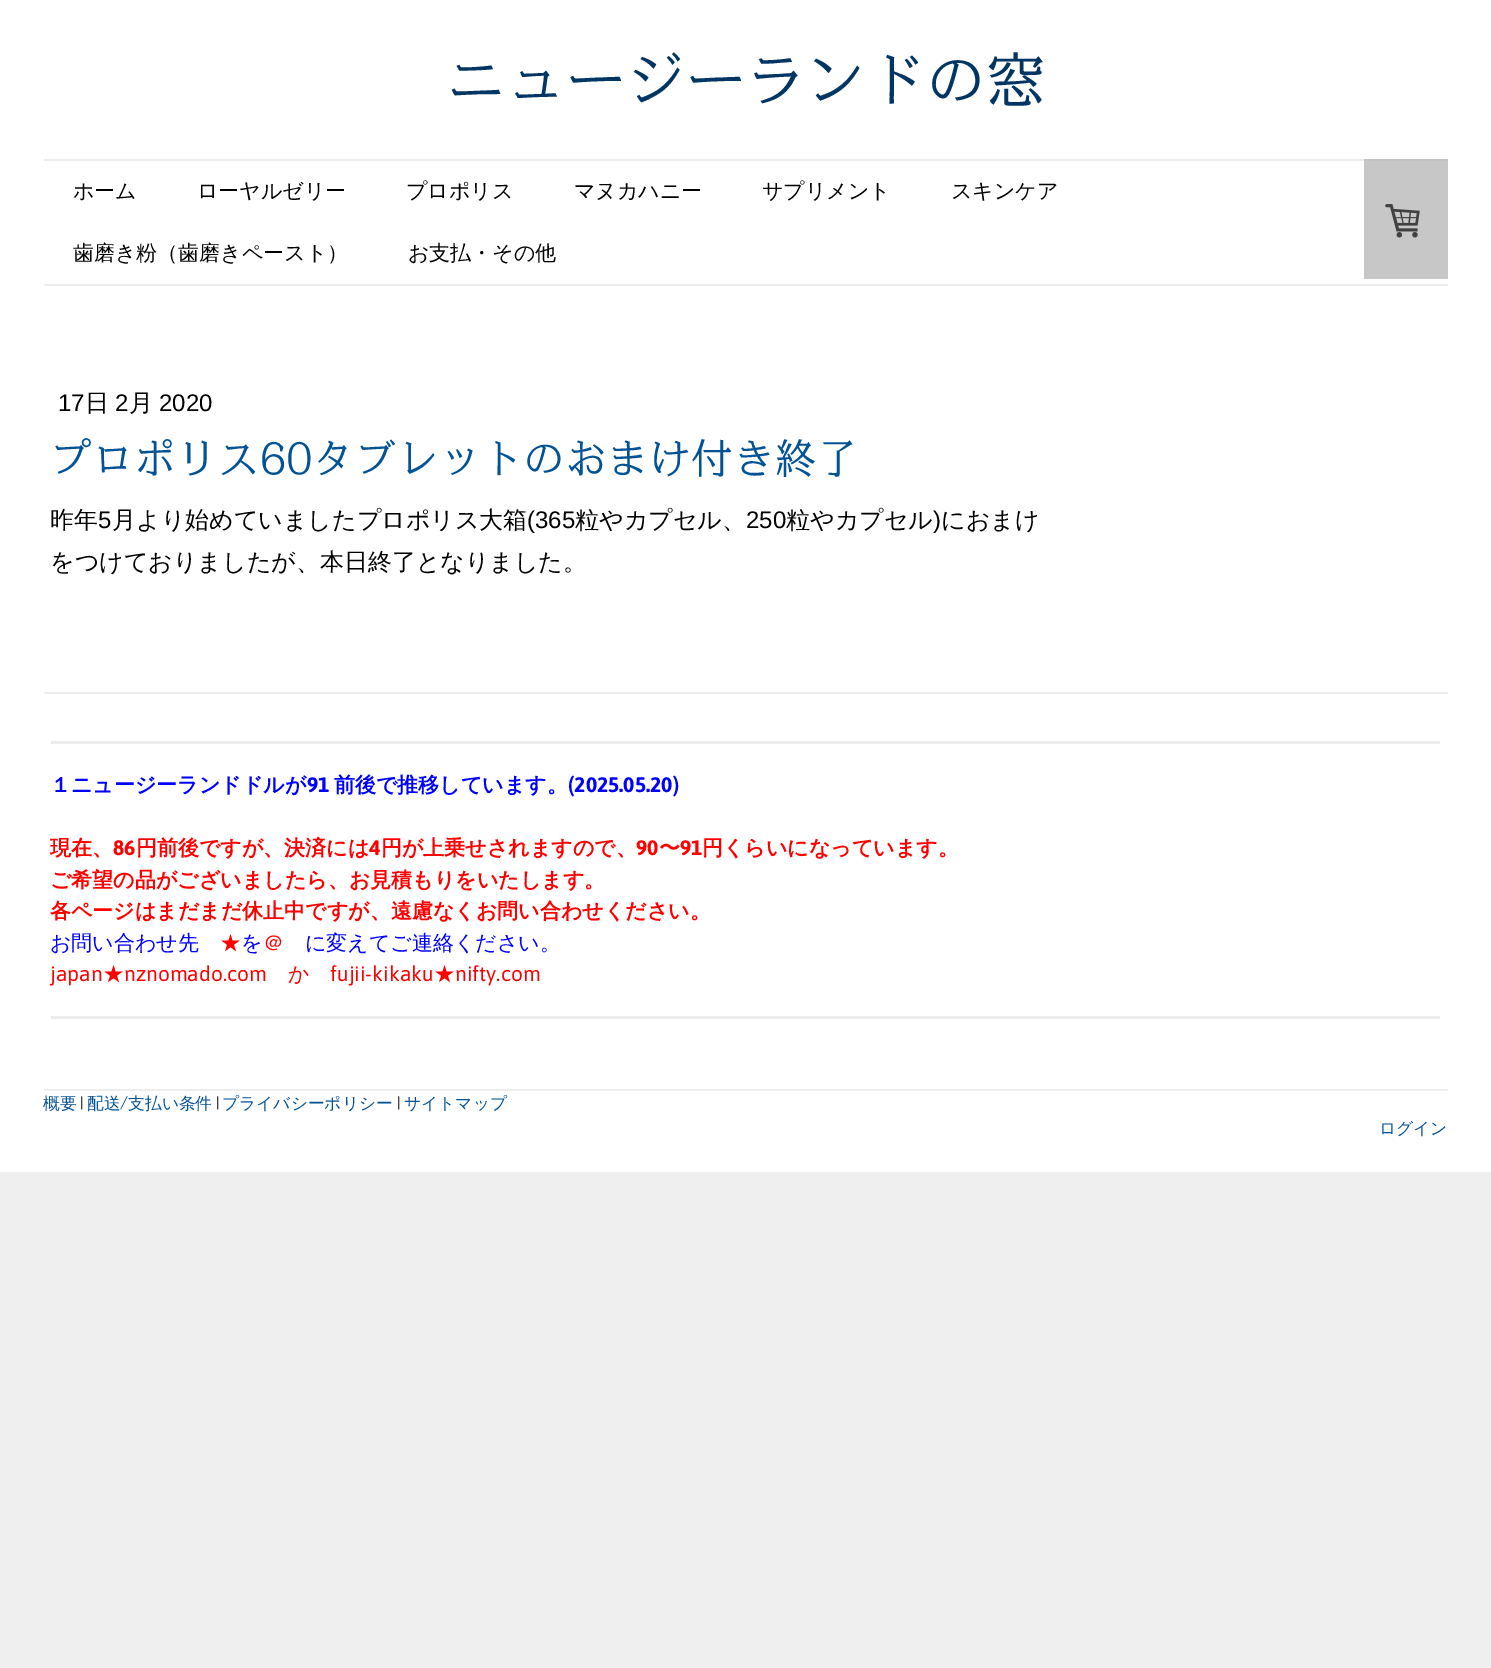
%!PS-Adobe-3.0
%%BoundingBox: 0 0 1491 1668
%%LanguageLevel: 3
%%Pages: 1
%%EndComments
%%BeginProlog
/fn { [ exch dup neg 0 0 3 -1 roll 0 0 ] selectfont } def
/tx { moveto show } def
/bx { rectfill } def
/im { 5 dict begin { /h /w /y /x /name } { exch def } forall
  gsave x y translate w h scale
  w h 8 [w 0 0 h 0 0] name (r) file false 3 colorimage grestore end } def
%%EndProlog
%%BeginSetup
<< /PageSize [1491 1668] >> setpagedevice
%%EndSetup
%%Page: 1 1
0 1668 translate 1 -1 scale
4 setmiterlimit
0.937 0.937 0.941 setrgbcolor
0 0 1491 1668 bx
1 setgray
0 0 1491 1172 bx
0.78 setgray
1364 161 84 118 bx
/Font-Regular 60 fn
0.004 0.212 0.392 setrgbcolor
(ニュージーランドの窓) 446 102 tx
0.929 setgray
44 159 1320 2 bx
0.761 setgray
1364 159 84 2 bx
0.929 setgray
44 284 1404 2 bx
/WenQuanYiZenHei-Medium 21 fn
0 setgray
(ホーム) 73 198 tx
(ローヤルゼリー) 197 198 tx
(プロポリス) 406 198 tx
(マヌカハニー) 574 198 tx
(サプリメント) 762 198 tx
(スキンケア) 951 198 tx
(歯磨き粉（歯磨きペースト）) 73 260 tx
(お支払・その他) 408 260 tx
(image0.raw) 1385 204 35 34 im
/LiberationSans-Regular 24 fn
(17) 58 411 tx
/WenQuanYiZenHei-Medium 24 fn
(日) 85 411 tx
/LiberationSans-Regular 24 fn
(2) 115 411 tx
/WenQuanYiZenHei-Medium 24 fn
(月) 129 411 tx
/LiberationSans-Regular 24 fn
(2020) 159 411 tx
/Font-Regular 42 fn
0.008 0.322 0.588 setrgbcolor
(プロポリス60タブレットのおまけ付き終了) 50 474 tx
/WenQuanYiZenHei-Medium 24 fn
0 setgray
(昨年) 50 528 tx
/LiberationSans-Regular 24 fn
(5) 98 528 tx
/WenQuanYiZenHei-Medium 24 fn
(月より始めていましたプロポリス大箱) 112 528 tx
/LiberationSans-Regular 24 fn
(\(365) 527 528 tx
/WenQuanYiZenHei-Medium 24 fn
(粒やカプセル、) 575 528 tx
/LiberationSans-Regular 24 fn
(250) 746 528 tx
/WenQuanYiZenHei-Medium 24 fn
(粒やカプセル) 786 528 tx
/LiberationSans-Regular 24 fn
(\)) 933 528 tx
/WenQuanYiZenHei-Medium 24 fn
(におまけ) 941 528 tx
(をつけておりましたが、本日終了となりました。) 50 570 tx
0.929 setgray
44 692 1404 2 bx
51 741 1389 3 bx
/WenQuanYiZenHei-Bold 21 fn
0 0 1 setrgbcolor
(１ニュージーランドドルが) 50 792 tx
/Asap-Bold 21 fn
(91) 307 792 tx
/WenQuanYiZenHei-Bold 21 fn
(前後で推移しています。) 334 792 tx
/Asap-Bold 21 fn
(\(2025.05.20\)) 568 792 tx
/WenQuanYiZenHei-Bold 21 fn
1 0 0 setrgbcolor
(現在、) 50 855 tx
/Asap-Bold 21 fn
(86) 113 855 tx
/WenQuanYiZenHei-Bold 21 fn
(円前後ですが、決済には) 136 855 tx
/Asap-Bold 21 fn
(4) 369 855 tx
/WenQuanYiZenHei-Bold 21 fn
(円が上乗せされますので、) 381 855 tx
/Asap-Bold 21 fn
(90) 636 855 tx
/WenQuanYiZenHei-Bold 21 fn
(〜) 659 855 tx
/Asap-Bold 21 fn
(91) 680 855 tx
/WenQuanYiZenHei-Bold 21 fn
(円くらいになっています。) 702 855 tx
(ご希望の品がございましたら、お見積もりをいたします。) 50 887 tx
(各ページはまだまだ休止中ですが、遠慮なくお問い合わせください。) 50 918 tx
/WenQuanYiZenHei-Medium 21 fn
0 0 1 setrgbcolor
(お問い合わせ先) 50 950 tx
1 0 0 setrgbcolor
(★) 220 950 tx
0 0 1 setrgbcolor
(を) 241 950 tx
1 0 0 setrgbcolor
(＠) 263 950 tx
0 0 1 setrgbcolor
(に変えてご連絡ください。) 305 950 tx
/Asap-Regular 21 fn
1 0 0 setrgbcolor
(japan) 50 981 tx
/WenQuanYiZenHei-Medium 21 fn
(★) 103 981 tx
/Asap-Regular 21 fn
(nznomado.com) 124 981 tx
/WenQuanYiZenHei-Medium 21 fn
(か) 288 981 tx
/Asap-Regular 21 fn
(fujii-kikaku) 330 981 tx
/WenQuanYiZenHei-Medium 21 fn
(★) 434 981 tx
/Asap-Regular 21 fn
(nifty.com) 455 981 tx
0.929 setgray
51 1016 1389 3 bx
44 1089 1404 2 bx
/WenQuanYiZenHei-Medium 16.75 fn
0.008 0.322 0.588 setrgbcolor
(概要) 43 1109 tx
/Dosis-Regular 16.75 fn
0 setgray
(|) 80 1109 tx
/WenQuanYiZenHei-Medium 16.75 fn
0.008 0.322 0.588 setrgbcolor
(配送) 87 1109 tx
/Dosis-Regular 16.75 fn
(/) 120 1109 tx
/WenQuanYiZenHei-Medium 16.75 fn
(支払い条件) 128 1109 tx
/Dosis-Regular 16.75 fn
0 setgray
(|) 216 1109 tx
/WenQuanYiZenHei-Medium 16.75 fn
0.008 0.322 0.588 setrgbcolor
(プライバシーポリシー) 222 1109 tx
/Dosis-Regular 16.75 fn
0 setgray
(|) 397 1109 tx
/WenQuanYiZenHei-Medium 16.75 fn
0.008 0.322 0.588 setrgbcolor
(サイトマップ) 404 1109 tx
(ログイン) 1379 1134 tx
showpage
%%EOF
